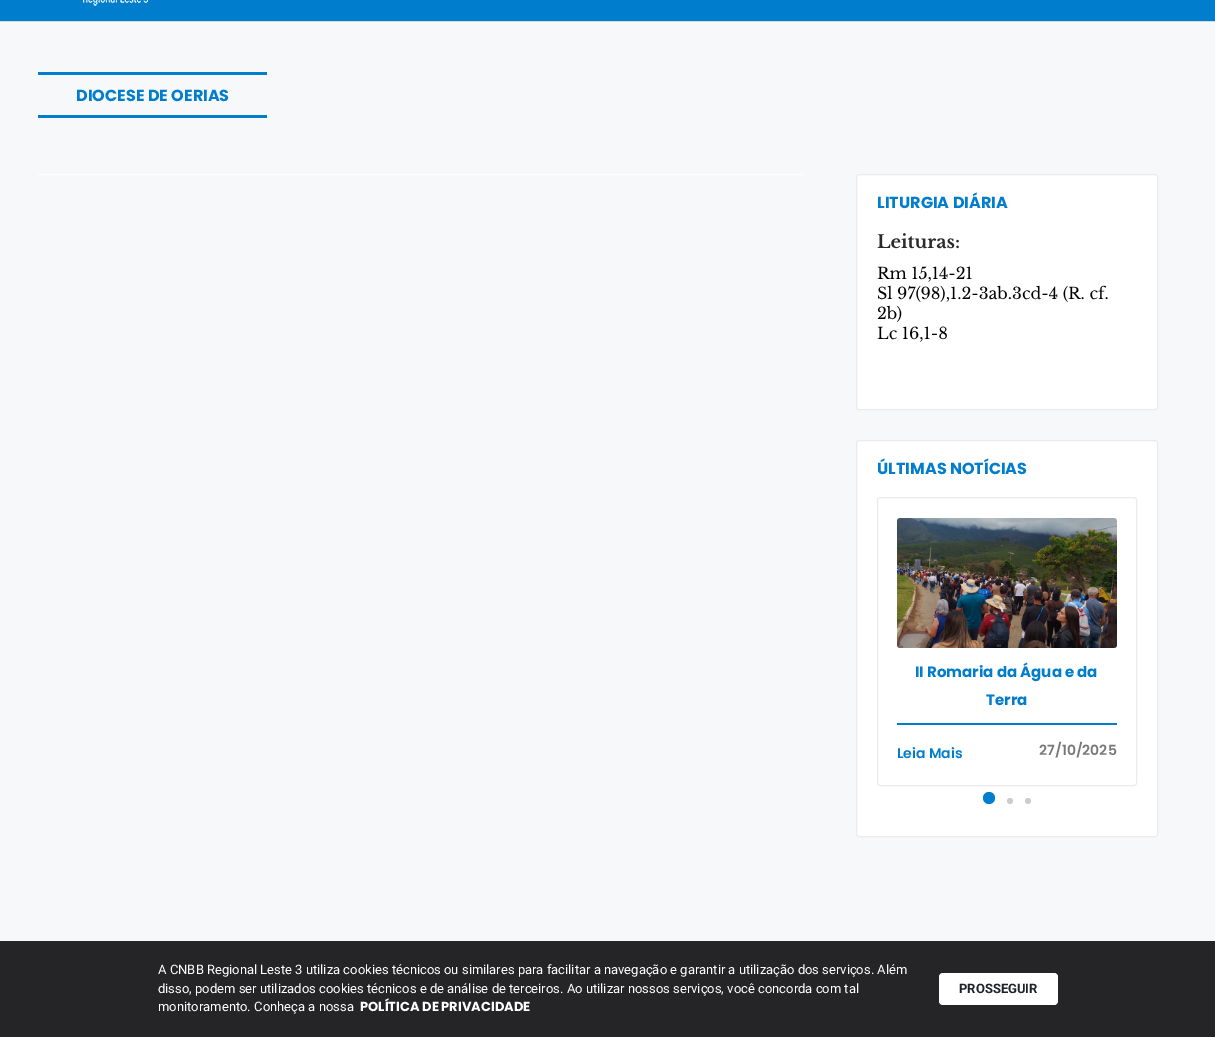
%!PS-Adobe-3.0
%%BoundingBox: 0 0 1215 1037
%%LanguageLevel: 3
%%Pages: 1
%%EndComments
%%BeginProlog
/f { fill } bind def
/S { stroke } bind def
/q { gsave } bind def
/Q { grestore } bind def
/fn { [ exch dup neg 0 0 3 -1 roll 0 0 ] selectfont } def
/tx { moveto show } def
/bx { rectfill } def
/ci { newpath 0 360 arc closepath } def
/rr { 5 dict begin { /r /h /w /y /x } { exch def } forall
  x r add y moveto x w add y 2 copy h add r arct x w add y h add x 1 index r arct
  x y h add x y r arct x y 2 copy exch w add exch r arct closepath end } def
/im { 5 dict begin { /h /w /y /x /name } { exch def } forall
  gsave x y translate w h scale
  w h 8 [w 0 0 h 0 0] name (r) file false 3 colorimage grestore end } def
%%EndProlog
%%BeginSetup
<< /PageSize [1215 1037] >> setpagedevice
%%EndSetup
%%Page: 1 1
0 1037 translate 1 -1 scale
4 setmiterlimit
0.969 0.973 0.976 setrgbcolor
0 0 1215 1037 bx
0 0.49 0.8 setrgbcolor
0 0 1215 21 bx
0.847 setgray
0 21 1215 1 bx
(image0.raw) 83 0 65 6 im
0 0.49 0.8 setrgbcolor
38 72 229 3 bx
38 115 229 3 bx
/Poppins-Bold 16 fn
(DIOCESE DE OERIAS) 76 101 tx
1 setgray
38 174 765 1 bx
856.5 174.5 301 235 2.5 rr q f Q
0.922 setgray
S
0 0.49 0.8 setrgbcolor
(LITURGIA DIÁRIA) 877 208 tx
(image1.raw) 877 233 231 109 im
1 setgray
856.5 440.5 301 396 2.5 rr q f Q
0.922 setgray
S
0 0.49 0.8 setrgbcolor
(ÚLTIMAS NOTÍCIAS) 877 474 tx
0.922 setgray
877.5 497.5 259 288 2.5 rr S
(image2.raw) 897 518 220 130 im
/Poppins-Bold 15 fn
0 0.49 0.8 setrgbcolor
(II Romaria da Água e da) 915 677 tx
(Terra) 986 705 tx
897 723 220 2 bx
/Poppins-SemiBold 14 fn
(Leia Mais) 897 758 tx
0.471 setgray
(27/10/2025) 1039 755 tx
0 0.49 0.8 setrgbcolor
989 798 6 ci f
0.8 setgray
1010 801 3 ci f
1028 801 3 ci f
0.145 0.145 0.157 setrgbcolor
0 941 1215 96 bx
/Roboto-Regular 13 fn
1 setgray
(A CNBB Regional Leste 3 utiliza cookies técnicos ou similares para facilitar a navegação e garantir a utilização dos serviços. Além) 158 974 tx
(disso, podem ser utilizados cookies técnicos e de análise de terceiros. Ao utilizar nossos serviços, você concorda com tal) 158 993 tx
(monitoramento. Conheça a nossa) 158 1011 tx
/Poppins-Bold 13 fn
(POLÍTICA DE PRIVACIDADE) 360 1011 tx
939 973 119 32 4 rr f
/Roboto-Bold 13 fn
0.114 0.129 0.161 setrgbcolor
(PROSSEGUIR) 959 993 tx
showpage
%%EOF
